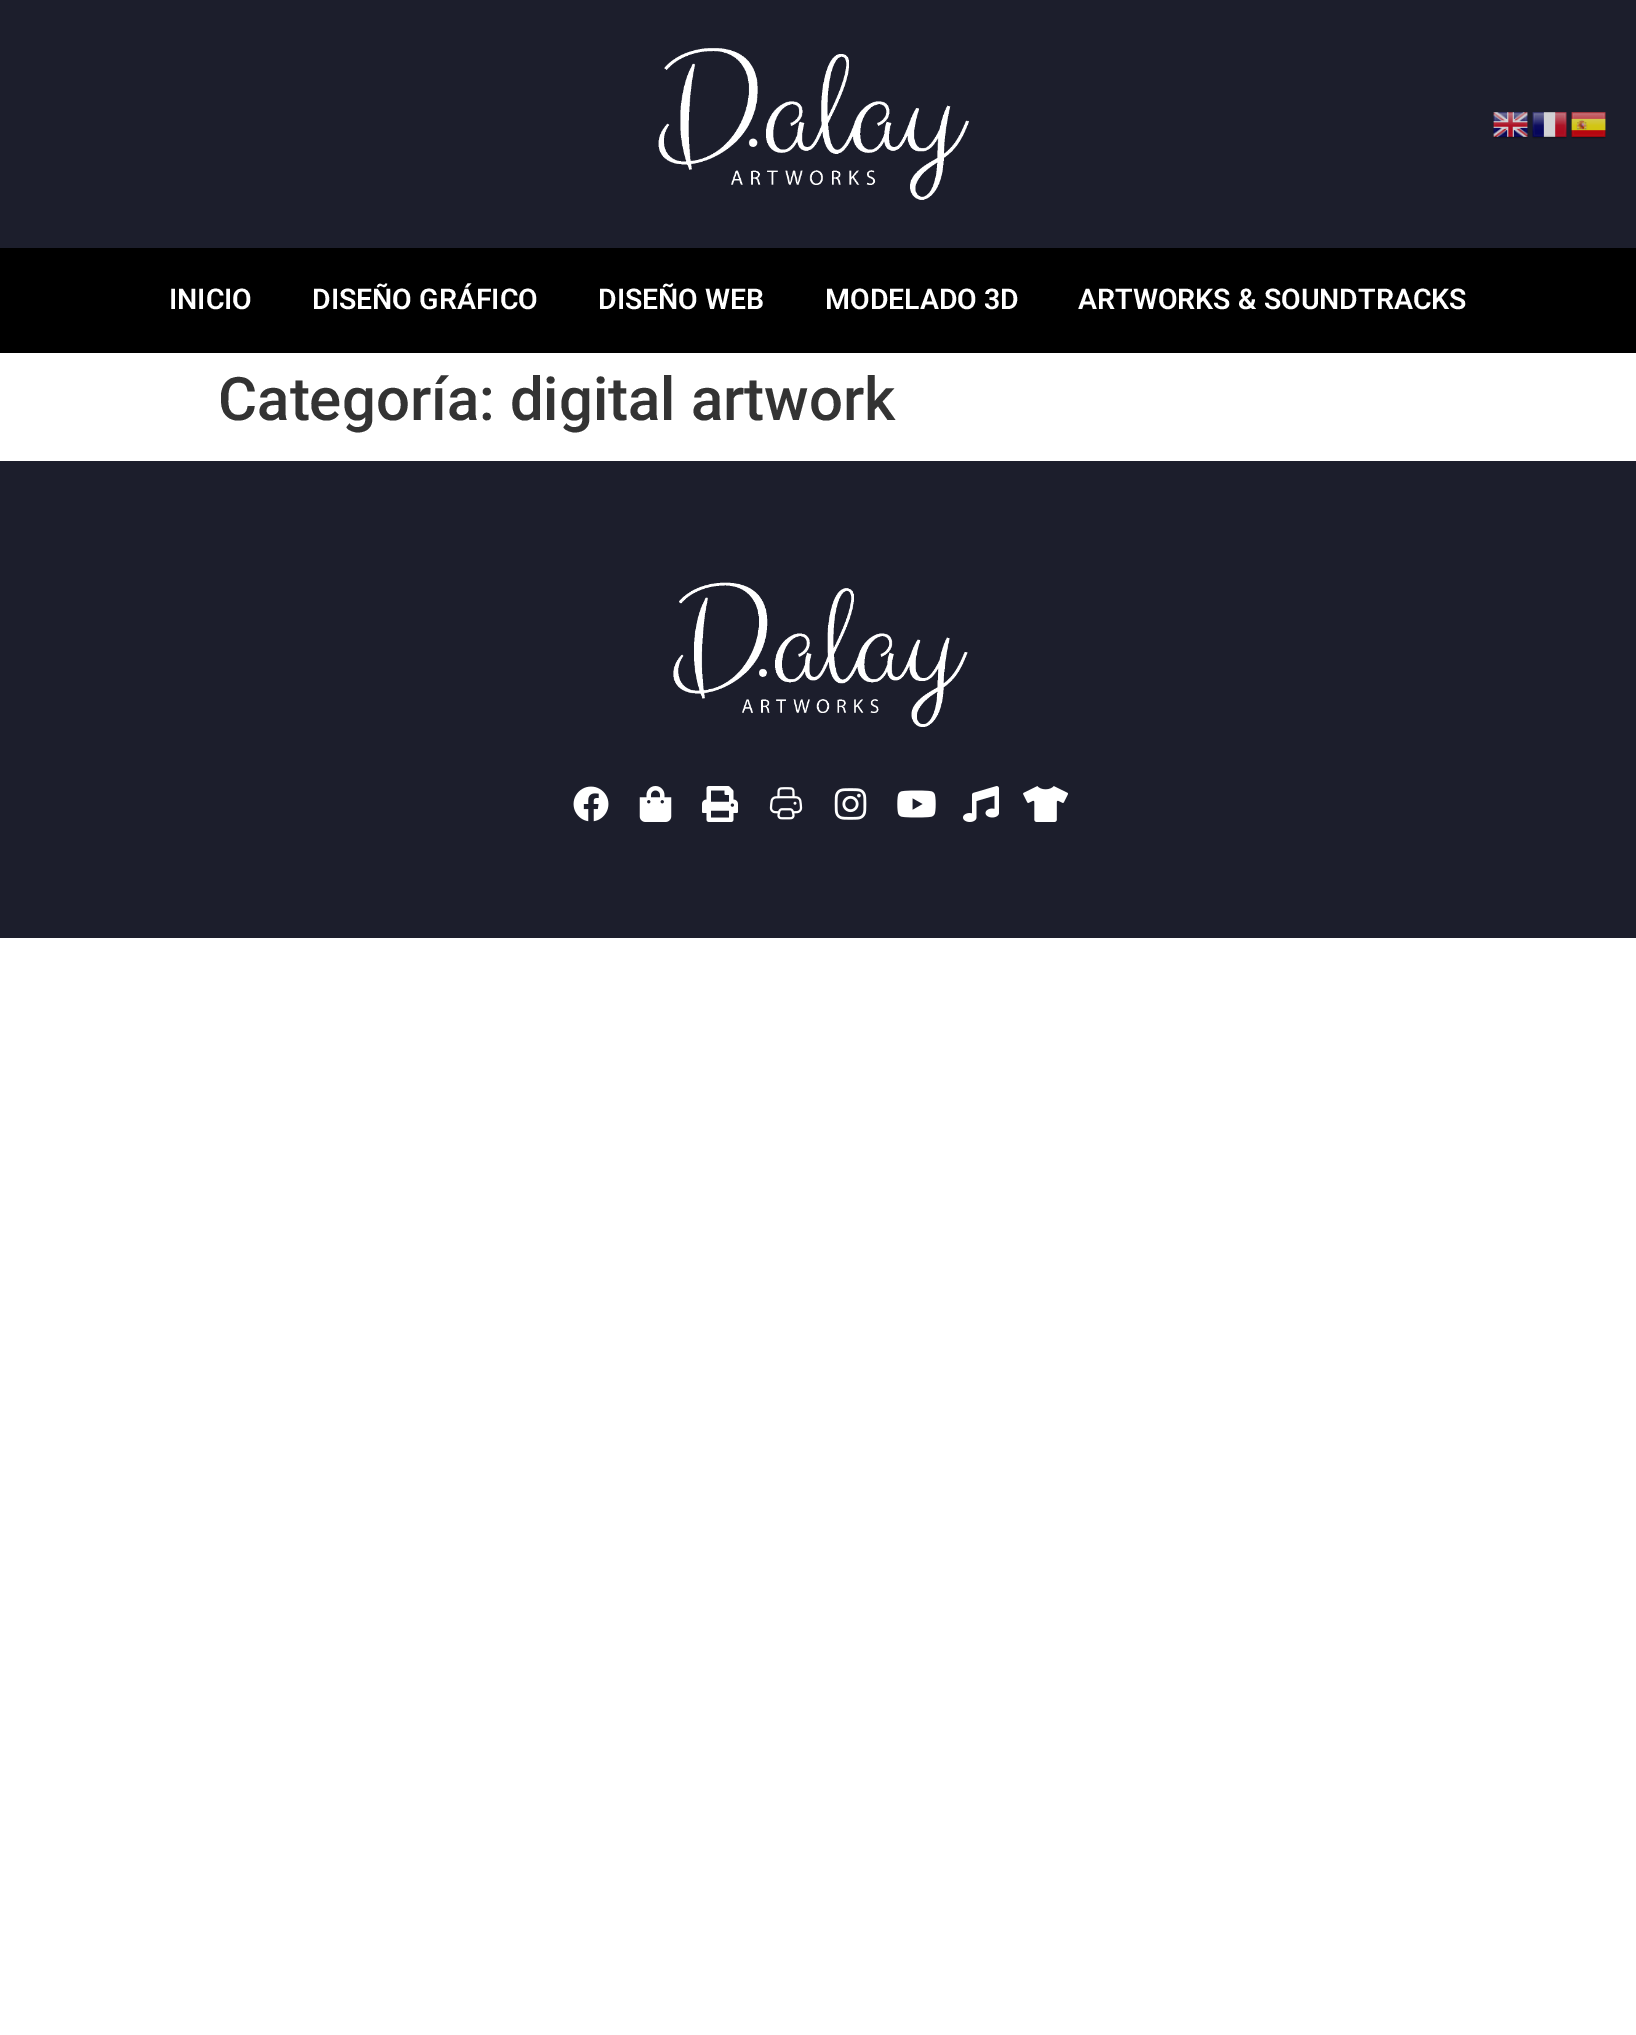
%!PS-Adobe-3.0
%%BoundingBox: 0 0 1636 2035
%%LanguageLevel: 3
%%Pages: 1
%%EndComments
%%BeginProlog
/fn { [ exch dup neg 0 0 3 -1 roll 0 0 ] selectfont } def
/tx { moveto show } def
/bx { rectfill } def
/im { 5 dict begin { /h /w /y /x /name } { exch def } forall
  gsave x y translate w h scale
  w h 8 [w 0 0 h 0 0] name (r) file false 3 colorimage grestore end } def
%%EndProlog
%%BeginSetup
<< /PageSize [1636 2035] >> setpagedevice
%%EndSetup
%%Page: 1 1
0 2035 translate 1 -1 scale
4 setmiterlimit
1 setgray
0 0 1636 2035 bx
0.11 0.118 0.173 setrgbcolor
0 0 1636 248 bx
(image0.raw) 658 48 311 152 im
(image1.raw) 1493 112 35 27 im
(image2.raw) 1532 112 35 27 im
(image3.raw) 1571 112 35 27 im
0 setgray
0 248 1636 105 bx
/Roboto-SemiBold 28.5 fn
1 setgray
(INICIO) 169 309 tx
(DISEÑO GRÁFICO) 312 309 tx
(DISEÑO WEB) 598 309 tx
(MODELADO 3D) 825 309 tx
(ARTWORKS & SOUNDTRACKS) 1078 309 tx
/Roboto-Medium 60 fn
0.2 setgray
(Categoría: digital artwork) 218 420 tx
0.11 0.118 0.173 setrgbcolor
0 461 1636 477 bx
(image4.raw) 673 582 295 145 im
(image5.raw) 573 786 36 36 im
(image6.raw) 639 786 33 36 im
(image7.raw) 702 786 36 36 im
(image8.raw) 769 787 34 33 im
(image9.raw) 834 788 33 32 im
(image10.raw) 897 790 39 28 im
(image11.raw) 963 786 36 36 im
(image12.raw) 1023 786 45 36 im
showpage
%%EOF
